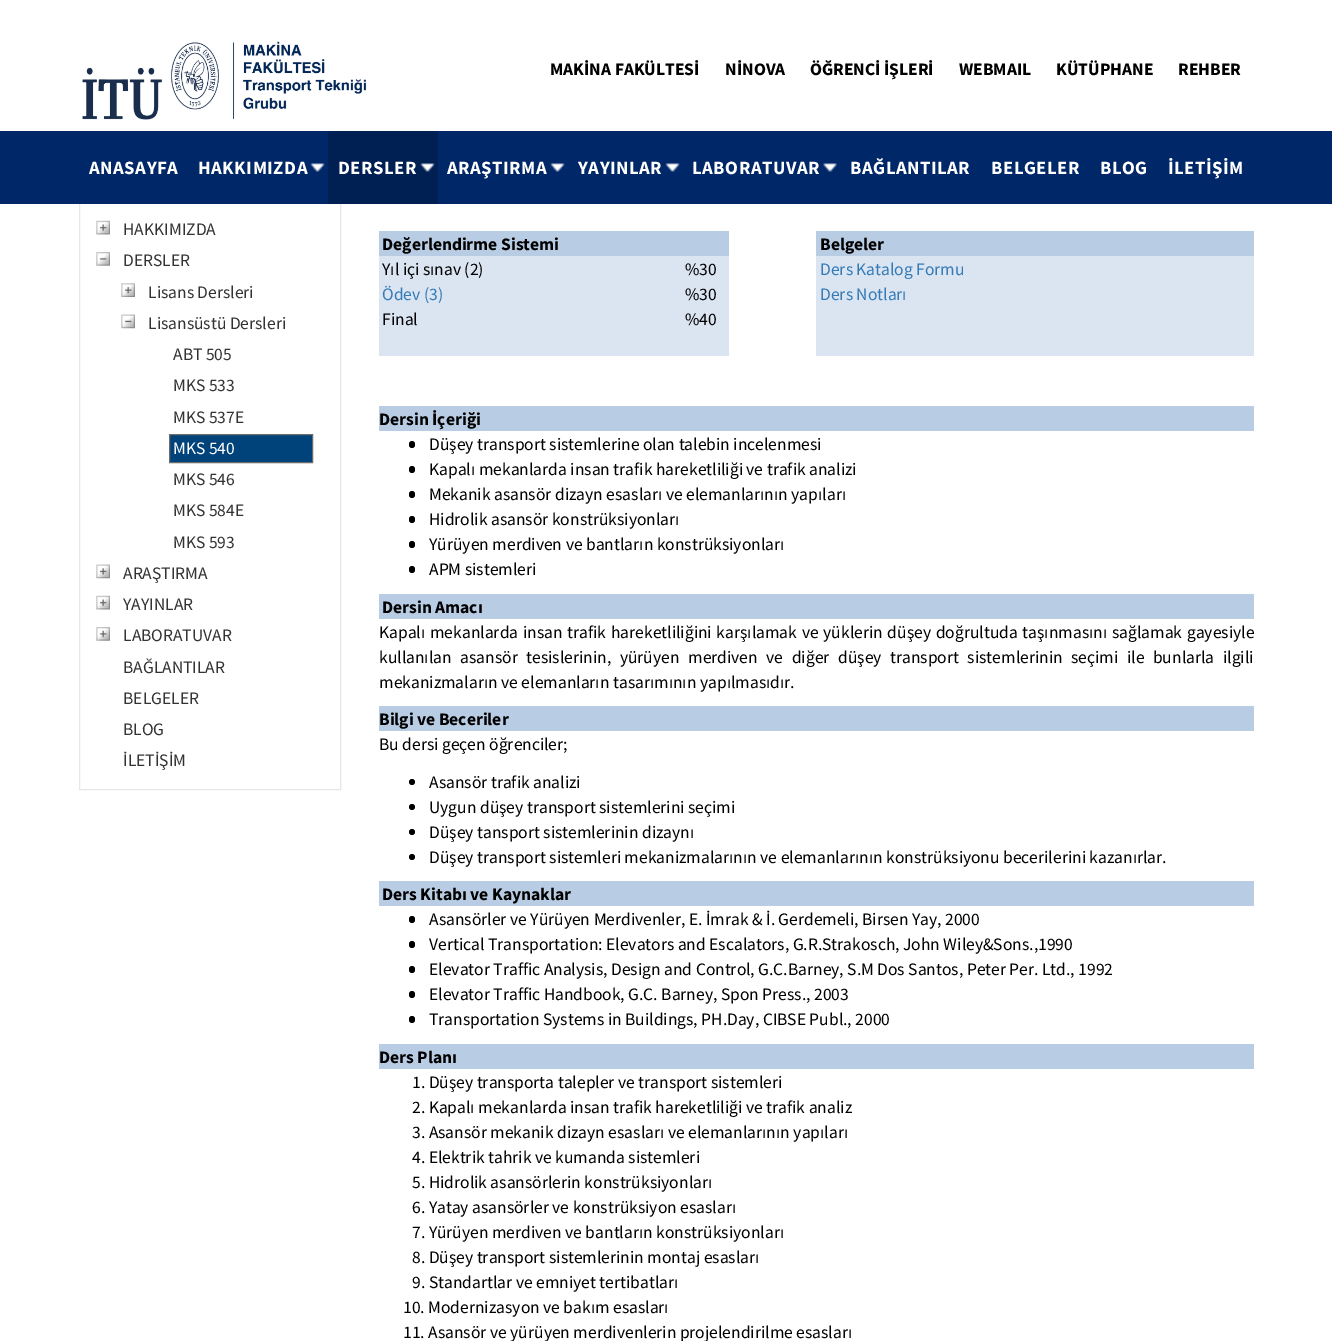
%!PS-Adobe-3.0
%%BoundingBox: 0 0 1332 1341
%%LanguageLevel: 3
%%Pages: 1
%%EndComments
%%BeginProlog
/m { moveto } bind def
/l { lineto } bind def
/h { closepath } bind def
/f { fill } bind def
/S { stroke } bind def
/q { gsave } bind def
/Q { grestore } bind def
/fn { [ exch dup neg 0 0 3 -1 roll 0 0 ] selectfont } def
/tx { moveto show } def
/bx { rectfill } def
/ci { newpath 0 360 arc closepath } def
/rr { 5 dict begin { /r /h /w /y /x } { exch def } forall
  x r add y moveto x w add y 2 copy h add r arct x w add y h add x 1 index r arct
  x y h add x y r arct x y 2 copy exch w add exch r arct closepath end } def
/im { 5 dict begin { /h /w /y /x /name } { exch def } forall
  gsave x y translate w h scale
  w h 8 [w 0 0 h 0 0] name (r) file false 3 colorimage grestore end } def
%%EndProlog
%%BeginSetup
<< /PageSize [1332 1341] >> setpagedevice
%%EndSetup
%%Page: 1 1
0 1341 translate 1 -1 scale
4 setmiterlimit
1 setgray
0 0 1332 1341 bx
(image0.raw) 82 41 285 79 im
/SourceSansPro-Bold 17.5 fn
0 setgray
(MAKİNA FAKÜLTESİ) 550 75 tx
(NİNOVA) 725 75 tx
(ÖĞRENCİ İŞLERİ) 810 75 tx
(WEBMAIL) 959 75 tx
(KÜTÜPHANE) 1056 75 tx
(REHBER) 1178 75 tx
0.906 setgray
79.5 169.5 261 620 rectstroke
0 0.157 0.408 setrgbcolor
0 131 1332 73 bx
/SourceSansPro-Bold 18.75 fn
1 setgray
89 174 m 0.5 0 (ANASAYFA) ashow
198 174 m 0.5 0 (HAKKIMIZDA) ashow
(image1.raw) 310 163 15 9 im
0 0.125 0.325 setrgbcolor
328 131 110 73 bx
1 setgray
338 174 m 0.5 0 (DERSLER) ashow
(image2.raw) 420 163 15 9 im
447 174 m 0.5 0 (ARAŞTIRMA) ashow
(image1.raw) 550 163 15 9 im
578 174 m 0.5 0 (YAYINLAR) ashow
(image3.raw) 665 163 15 9 im
692 174 m 0.5 0 (LABORATUVAR) ashow
(image4.raw) 823 163 14 9 im
850 174 m 0.5 0 (BAĞLANTILAR) ashow
991 174 m 0.5 0 (BELGELER) ashow
1100 174 m 0.5 0 (BLOG) ashow
1168 174 m 0.5 0 (İLETİŞİM) ashow
(image5.raw) 96 220 14 15 im
/SourceSansPro-Regular 17.5 fn
0.2 setgray
(HAKKIMIZDA) 123 235 tx
(image6.raw) 96 252 14 14 im
(DERSLER) 123 266 tx
(image7.raw) 121 283 14 14 im
(Lisans Dersleri) 148 298 tx
(image8.raw) 121 314 14 15 im
(Lisansüstü Dersleri) 148 329 tx
(ABT 505) 173 360 tx
(MKS 533) 173 391 tx
(MKS 537E) 173 423 tx
0 0.263 0.478 setrgbcolor
169.5 434.5 m 312.5 434.5 l 312.5 462.5 l 169.5 462.5 l h q f Q
0.424 setgray
S
1 setgray
(MKS 540) 173 454 tx
0.2 setgray
(MKS 546) 173 485 tx
(MKS 584E) 173 516 tx
(MKS 593) 173 548 tx
(image9.raw) 96 564 14 15 im
(ARAŞTIRMA) 123 579 tx
(image5.raw) 96 595 14 15 im
(YAYINLAR) 123 610 tx
(image10.raw) 96 627 14 14 im
(LABORATUVAR) 123 641 tx
(BAĞLANTILAR) 123 673 tx
(BELGELER) 123 704 tx
(BLOG) 123 735 tx
(İLETİŞİM) 123 766 tx
0.722 0.8 0.894 setrgbcolor
379 231 350 25 bx
/SourceSansPro-Bold 17.5 fn
0 setgray
(Değerlendirme Sistemi) 382 250 tx
0.722 0.8 0.894 setrgbcolor
816 231 438 25 bx
0 setgray
(Belgeler) 820 250 tx
0.859 0.898 0.945 setrgbcolor
379 256 350 100 bx
/SourceSansPro-Regular 17.5 fn
0 setgray
(Yıl içi sınav \(2\)) 382 275 tx
0.2 0.478 0.718 setrgbcolor
(Ödev \(3\)) 382 300 tx
0 setgray
(Final) 382 325 tx
(%30) 685 275 tx
(%30) 685 300 tx
(%40) 685 325 tx
0.859 0.898 0.945 setrgbcolor
816 256 438 100 bx
0.2 0.478 0.718 setrgbcolor
(Ders Katalog Formu) 820 275 tx
(Ders Notları) 820 300 tx
0.722 0.8 0.894 setrgbcolor
379 406 875 25 bx
/SourceSansPro-Bold 17.5 fn
0 setgray
(Dersin İçeriği) 379 425 tx
409 441 6 7 3 rr f
/SourceSansPro-Regular 17.5 fn
(Düşey transport sistemlerine olan talebin incelenmesi) 429 450 tx
409 466 6 7 3 rr f
(Kapalı mekanlarda insan trafik hareketliliği ve trafik analizi) 429 475 tx
409 491 6 7 3 rr f
(Mekanik asansör dizayn esasları ve elemanlarının yapıları) 429 500 tx
409 516 6 7 3 rr f
(Hidrolik asansör konstrüksiyonları) 429 525 tx
409 541 6 7 3 rr f
(Yürüyen merdiven ve bantların konstrüksiyonları) 429 550 tx
409 566 6 7 3 rr f
(APM sistemleri) 429 575 tx
0.722 0.8 0.894 setrgbcolor
379 594 875 25 bx
/SourceSansPro-Bold 17.5 fn
0 setgray
(Dersin Amacı) 382 613 tx
/SourceSansPro-Regular 17.5 fn
379 638 m 1.25 0 32 (Kapalı mekanlarda insan trafik hareketliliğini karşılamak ve yüklerin düşey doğrultuda taşınmasını sağlamak gayesiyle) widthshow
379 663 m 5.1 0 32 (kullanılan asansör tesislerinin, yürüyen merdiven ve diğer düşey transport sistemlerinin seçimi ile bunlarla ilgili) widthshow
(mekanizmaların ve elemanların tasarımının yapılmasıdır.) 379 688 tx
0.722 0.8 0.894 setrgbcolor
379 706 875 25 bx
/SourceSansPro-Bold 17.5 fn
0 setgray
(Bilgi ve Beceriler) 379 725 tx
/SourceSansPro-Regular 17.5 fn
(Bu dersi geçen öğrenciler;) 379 750 tx
412 782 3 ci f
(Asansör trafik analizi) 429 788 tx
412 807 3 ci f
(Uygun düşey transport sistemlerini seçimi) 429 813 tx
412 832 3 ci f
(Düşey tansport sistemlerinin dizaynı) 429 838 tx
412 857 3 ci f
(Düşey transport sistemleri mekanizmalarının ve elemanlarının konstrüksiyonu becerilerini kazanırlar.) 429 863 tx
0.722 0.8 0.894 setrgbcolor
379 881 875 25 bx
/SourceSansPro-Bold 17.5 fn
0 setgray
(Ders Kitabı ve Kaynaklar) 382 900 tx
409 916 6 7 3 rr f
/SourceSansPro-Regular 17.5 fn
(Asansörler ve Yürüyen Merdivenler, E. İmrak & İ. Gerdemeli, Birsen Yay, 2000) 429 925 tx
409 941 6 7 3 rr f
(Vertical Transportation: Elevators and Escalators, G.R.Strakosch, John Wiley&Sons.,1990) 429 950 tx
409 966 6 7 3 rr f
(Elevator Traffic Analysis, Design and Control, G.C.Barney, S.M Dos Santos, Peter Per. Ltd., 1992) 429 975 tx
409 991 6 7 3 rr f
(Elevator Traffic Handbook, G.C. Barney, Spon Press., 2003) 429 1000 tx
409 1016 6 7 3 rr f
(Transportation Systems in Buildings, PH.Day, CIBSE Publ., 2000) 429 1025 tx
0.722 0.8 0.894 setrgbcolor
379 1044 875 25 bx
/SourceSansPro-Bold 17.5 fn
0 setgray
(Ders Planı) 379 1063 tx
/SourceSansPro-Regular 17.5 fn
(1. Düşey transporta talepler ve transport sistemleri) 412 1088 tx
(2. Kapalı mekanlarda insan trafik hareketliliği ve trafik analiz) 412 1113 tx
(3. Asansör mekanik dizayn esasları ve elemanlarının yapıları) 412 1138 tx
(4. Elektrik tahrik ve kumanda sistemleri) 412 1163 tx
(5. Hidrolik asansörlerin konstrüksiyonları) 412 1188 tx
(6. Yatay asansörler ve konstrüksiyon esasları) 412 1213 tx
(7. Yürüyen merdiven ve bantların konstrüksiyonları) 412 1238 tx
(8. Düşey transport sistemlerinin montaj esasları) 412 1263 tx
(9. Standartlar ve emniyet tertibatları) 412 1288 tx
(10. Modernizasyon ve bakım esasları) 403 1313 tx
(11. Asansör ve yürüyen merdivenlerin projelendirilme esasları) 403 1338 tx
showpage
%%EOF
